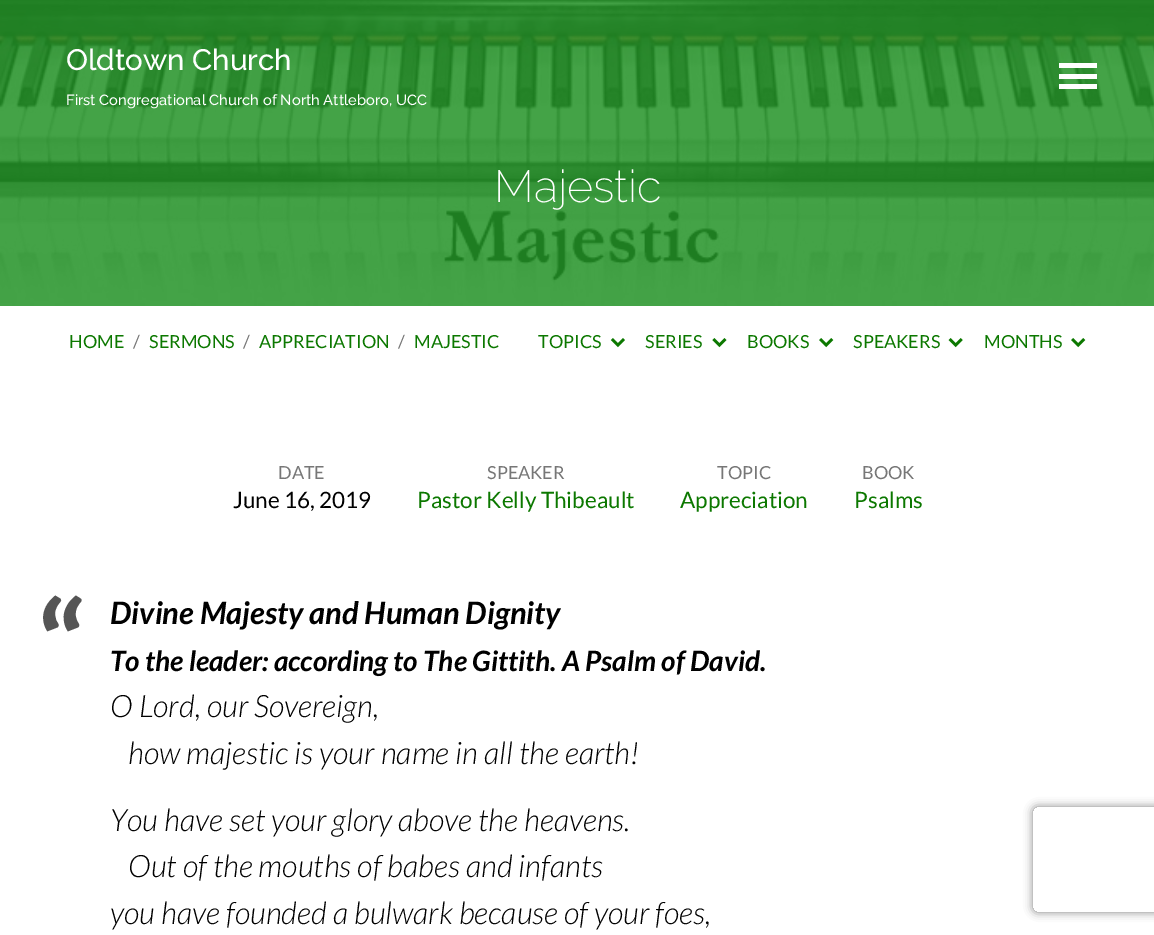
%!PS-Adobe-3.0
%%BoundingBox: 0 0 1154 935
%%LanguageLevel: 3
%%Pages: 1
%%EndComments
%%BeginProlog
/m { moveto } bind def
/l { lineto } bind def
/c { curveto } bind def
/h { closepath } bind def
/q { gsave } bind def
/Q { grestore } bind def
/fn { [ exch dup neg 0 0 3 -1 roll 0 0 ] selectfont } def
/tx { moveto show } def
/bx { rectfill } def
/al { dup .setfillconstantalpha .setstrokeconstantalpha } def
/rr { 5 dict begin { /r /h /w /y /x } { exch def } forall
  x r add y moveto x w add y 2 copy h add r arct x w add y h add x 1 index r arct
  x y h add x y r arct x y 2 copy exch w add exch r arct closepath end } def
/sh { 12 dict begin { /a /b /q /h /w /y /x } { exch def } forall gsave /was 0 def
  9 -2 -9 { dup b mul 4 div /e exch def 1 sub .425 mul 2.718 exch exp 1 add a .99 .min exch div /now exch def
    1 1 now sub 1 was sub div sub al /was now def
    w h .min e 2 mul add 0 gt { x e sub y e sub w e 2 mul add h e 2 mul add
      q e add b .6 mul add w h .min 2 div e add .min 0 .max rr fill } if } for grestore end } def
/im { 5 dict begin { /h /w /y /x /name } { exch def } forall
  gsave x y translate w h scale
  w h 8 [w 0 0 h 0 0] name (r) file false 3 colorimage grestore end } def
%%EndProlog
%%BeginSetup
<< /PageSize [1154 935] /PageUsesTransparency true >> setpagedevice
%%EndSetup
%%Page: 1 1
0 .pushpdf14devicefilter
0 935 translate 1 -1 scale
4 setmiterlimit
1 setgray
0 0 1154 935 bx
0.137 0.576 0.153 setrgbcolor
0 0 1154 306 bx
(image0.raw) 0 0 1154 306 im
/Raleway-Medium 29.5 fn
1 setgray
(Oldtown Church) 66 70 tx
/Raleway-Medium 14.7 fn
(First Congregational Church of North Attleboro, UCC) 66 105 tx
1059 63 38 5 bx
1059 74 38 5 bx
1059 84 38 5 bx
/Raleway-ExtraLight 45 fn
(Majestic) 494 202 tx
/Lato-Regular 18 fn
0.047 0.471 0 setrgbcolor
(HOME) 69 348 tx
0.467 setgray
(/) 133 348 tx
0.047 0.471 0 setrgbcolor
(SERMONS) 149 348 tx
0.467 setgray
(/) 243 348 tx
0.047 0.471 0 setrgbcolor
(APPRECIATION) 259 348 tx
0.467 setgray
(/) 398 348 tx
0.047 0.471 0 setrgbcolor
(MAJESTIC) 414 348 tx
(TOPICS) 538 348 tx
(image1.raw) 610 338 15 10 im
(SERIES) 645 348 tx
(image2.raw) 712 338 15 10 im
(BOOKS) 747 348 tx
(image3.raw) 819 338 15 10 im
(SPEAKERS) 853 348 tx
(image4.raw) 948 338 15 10 im
(MONTHS) 984 348 tx
(image3.raw) 1071 338 15 10 im
0.467 setgray
(DATE) 278 479 tx
/Lato-Regular 22.5 fn
0 setgray
(June 16, 2019) 233 508 tx
/Lato-Regular 18 fn
0.467 setgray
(SPEAKER) 487 479 tx
/Lato-Regular 22.5 fn
0.047 0.471 0 setrgbcolor
(Pastor Kelly Thibeault) 417 508 tx
/Lato-Regular 18 fn
0.467 setgray
(TOPIC) 717 479 tx
/Lato-Regular 22.5 fn
0.047 0.471 0 setrgbcolor
(Appreciation) 680 508 tx
/Lato-Regular 18 fn
0.467 setgray
(BOOK) 862 479 tx
/Lato-Regular 22.5 fn
0.047 0.471 0 setrgbcolor
(Psalms) 854 508 tx
/Lato-Bold 124 fn
0.333 setgray
(“) 37 692 tx
/Lato-BoldItalic 30.9 fn
0 setgray
(Divine Majesty and Human Dignity) 110 624 tx
/Lato-BoldItalic 28 fn
(To the leader: according to The Gittith. A Psalm of David.) 110 671 tx
/Lato-LightItalic 30.9 fn
(O Lord, our Sovereign,) 110 717 tx
(how majestic is your name in all the earth!) 128 764 tx
(You have set your glory above the heavens.) 110 831 tx
(Out of the mouths of babes and infants) 128 877 tx
(you have founded a bulwark because of your foes,) 110 924 tx
q
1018 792 m 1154 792 l 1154 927 l 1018 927 l h 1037 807 m 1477 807 l 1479 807 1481 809 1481 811 c 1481 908 l 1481 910 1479 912 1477 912 c 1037 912 l 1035 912 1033 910 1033 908 c 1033 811 l 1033 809 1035 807 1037 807 c h eoclip newpath
0.502 setgray
1033 807 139 105 4 4.5 1 sh
Q
.poppdf14devicefilter showpage
%%EOF
